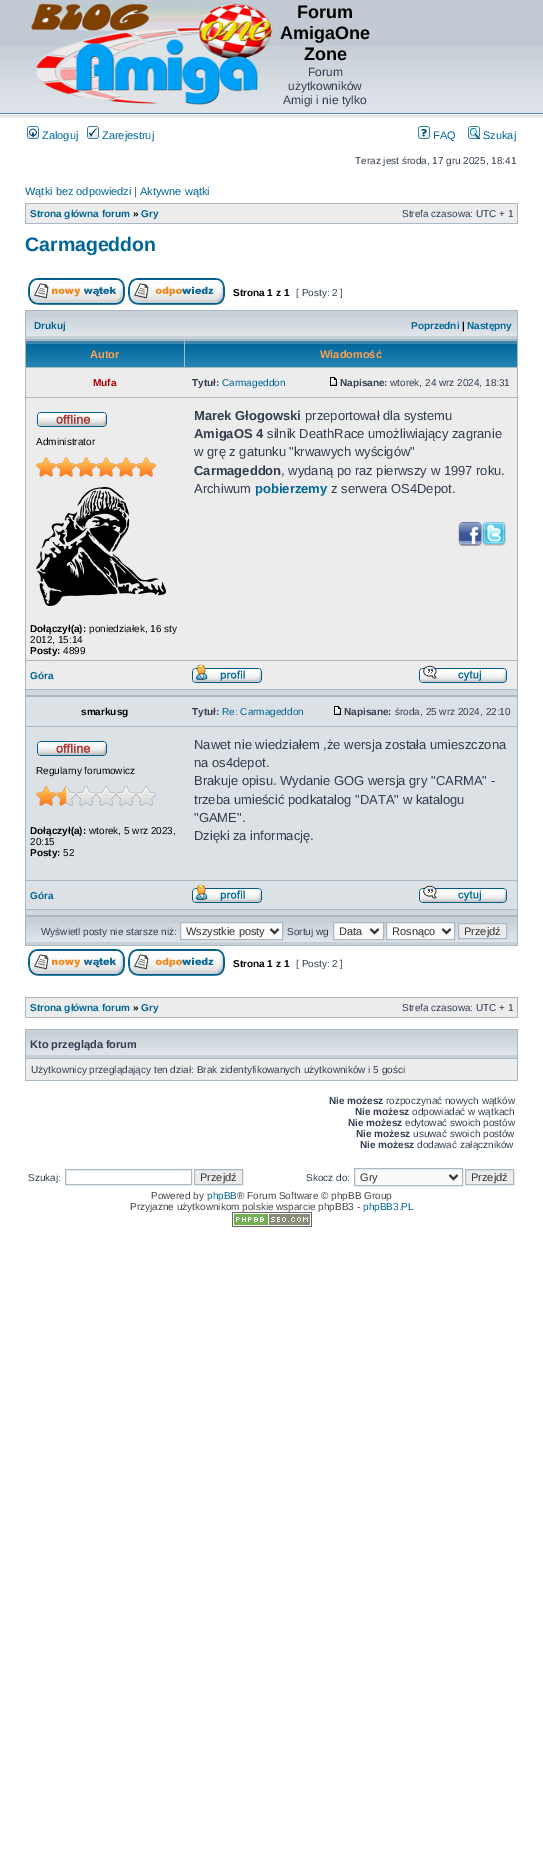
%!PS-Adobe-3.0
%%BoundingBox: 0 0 543 1855
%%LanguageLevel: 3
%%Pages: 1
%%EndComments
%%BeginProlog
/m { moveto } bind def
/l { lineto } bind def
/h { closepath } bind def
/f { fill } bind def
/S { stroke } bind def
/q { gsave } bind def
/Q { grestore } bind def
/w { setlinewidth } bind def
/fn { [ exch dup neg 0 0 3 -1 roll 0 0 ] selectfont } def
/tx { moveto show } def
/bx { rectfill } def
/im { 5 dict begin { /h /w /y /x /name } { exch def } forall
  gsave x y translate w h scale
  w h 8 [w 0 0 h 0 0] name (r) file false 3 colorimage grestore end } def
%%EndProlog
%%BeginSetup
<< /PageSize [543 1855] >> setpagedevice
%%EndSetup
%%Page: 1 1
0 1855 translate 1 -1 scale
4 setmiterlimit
1 setgray
0 0 543 1855 bx
0.757 0.792 0.824 setrgbcolor
0 0 543 46 bx
(image0.raw) 0 46 543 78 im
(image1.raw) 31 3 245 102 im
/LiberationSans-Bold 18 fn
0 setgray
(Forum) 297 18 tx
(AmigaOne) 280 39 tx
(Zone) 304 60 tx
/LiberationSans-Regular 12 fn
0.196 0.239 0.31 setrgbcolor
(Forum) 308 76 tx
(użytkowników) 288 90 tx
(Amigi i nie tylko) 283 104 tx
(image2.raw) 27 126 12 13 im
/LiberationSans-Regular 11 fn
0 0.396 0.592 setrgbcolor
(Zaloguj) 42 139 tx
(image3.raw) 87 126 12 13 im
(Zarejestruj) 102 139 tx
(image4.raw) 418 126 12 13 im
(FAQ) 433 139 tx
(image5.raw) 468 126 12 13 im
(Szukaj) 483 139 tx
/LiberationSans-Regular 10 fn
0.196 0.239 0.31 setrgbcolor
(Teraz jest środa, 17 gru 2025, 18:41) 355 164 tx
/LiberationSans-Regular 11 fn
0 0.396 0.592 setrgbcolor
(Wątki bez odpowiedzi) 25 195 tx
0.196 0.239 0.31 setrgbcolor
(|) 134 195 tx
0 0.396 0.592 setrgbcolor
(Aktywne wątki) 140 195 tx
0.663 0.722 0.761 setrgbcolor
25 203 493 21 bx
0.925 setgray
26 204 491 19 bx
/LiberationSans-Bold 10 fn
0 0.396 0.592 setrgbcolor
(Strona główna forum) 30 217 tx
0 setgray
(») 133 217 tx
0 0.396 0.592 setrgbcolor
(Gry) 141 217 tx
/LiberationSans-Regular 10 fn
0.196 0.239 0.31 setrgbcolor
(Strefa czasowa: UTC + 1) 402 217 tx
/LiberationSans-Bold 19.5 fn
0 0.396 0.592 setrgbcolor
(Carmageddon) 25 251 tx
(image6.raw) 28 278 97 27 im
(image7.raw) 128 278 97 27 im
/LiberationSans-Bold 10 fn
0 setgray
(Strona 1 z 1) 233 296 tx
/LiberationSans-Regular 10 fn
0.196 0.239 0.31 setrgbcolor
([ Posty: 2 ]) 296 296 tx
0.663 0.722 0.761 setrgbcolor
25 310 493 636 bx
0.78 0.816 0.843 setrgbcolor
26 311 491 28 bx
(image8.raw) 26 317 491 19 im
/LiberationSans-Bold 10 fn
0 0.396 0.592 setrgbcolor
(Drukuj) 34 329 tx
(Poprzedni) 411 329 tx
0 setgray
(|) 462 329 tx
0 0.396 0.592 setrgbcolor
(Następny) 467 329 tx
(image9.raw) 26 341 158 26 im
/LiberationSans-Bold 11 fn
1 0.639 0.31 setrgbcolor
(Autor) 90 358 tx
(image10.raw) 185 341 332 26 im
(Wiadomość) 320 358 tx
0.925 setgray
26 368 491 29 bx
/LiberationSans-Bold 10 fn
0.667 0 0 setrgbcolor
(Mufa) 93 386 tx
0.196 0.239 0.31 setrgbcolor
(Tytuł:) 192 386 tx
/LiberationSans-Regular 10 fn
0 0.396 0.592 setrgbcolor
(Carmageddon) 222 386 tx
(image11.raw) 330 377 7 9 im
/LiberationSans-Bold 10 fn
0.196 0.239 0.31 setrgbcolor
(Napisane:) 340 386 tx
/LiberationSans-Regular 10 fn
(wtorek, 24 wrz 2024, 18:31) 390 386 tx
0.925 setgray
26 398 491 262 bx
(image12.raw) 37 412 70 15 im
0 setgray
(Administrator) 36 445 tx
(image13.raw) 36 457 120 20 im
(image14.raw) 36 487 130 119 im
/LiberationSans-Bold 10 fn
(Dołączył\(a\):) 30 632 tx
/LiberationSans-Regular 10 fn
(poniedziałek, 16 sty) 89 632 tx
(2012, 15:14) 30 643 tx
/LiberationSans-Bold 10 fn
(Posty:) 30 654 tx
/LiberationSans-Regular 10 fn
(4899) 63 654 tx
/LiberationSans-Bold 13 fn
0.196 0.239 0.31 setrgbcolor
(Marek Głogowski) 194 420 tx
/LiberationSans-Regular 13 fn
(przeportował dla systemu) 305 420 tx
/LiberationSans-Bold 13 fn
(AmigaOS 4) 194 438 tx
/LiberationSans-Regular 13 fn
(silnik DeathRace umożliwiający zagranie) 267 438 tx
(w grę z gatunku "krwawych wyścigów") 194 456 tx
/LiberationSans-Bold 13 fn
(Carmageddon) 194 475 tx
/LiberationSans-Regular 13 fn
(, wydaną po raz pierwszy w 1997 roku.) 281 475 tx
(Archiwum) 194 493 tx
/LiberationSans-Bold 13 fn
0 0.396 0.592 setrgbcolor
(pobierzemy) 255 493 tx
/LiberationSans-Regular 13 fn
0.196 0.239 0.31 setrgbcolor
(z serwera OS4Depot.) 331 493 tx
(image15.raw) 458 522 24 24 im
(image16.raw) 482 522 24 24 im
0.925 setgray
26 661 491 28 bx
/LiberationSans-Bold 10 fn
0 0.396 0.592 setrgbcolor
(Góra) 30 679 tx
(image17.raw) 192 664 70 19 im
(image18.raw) 419 665 88 18 im
0.82 0.843 0.863 setrgbcolor
26 690 491 5 bx
0.863 0.882 0.898 setrgbcolor
26 697 491 29 bx
0 setgray
(smarkusg) 81 715 tx
0.196 0.239 0.31 setrgbcolor
(Tytuł:) 192 715 tx
/LiberationSans-Regular 10 fn
0 0.396 0.592 setrgbcolor
(Re: Carmageddon) 222 715 tx
(image19.raw) 334 706 7 9 im
/LiberationSans-Bold 10 fn
0.196 0.239 0.31 setrgbcolor
(Napisane:) 344 715 tx
/LiberationSans-Regular 10 fn
(środa, 25 wrz 2024, 22:10) 395 715 tx
0.863 0.882 0.898 setrgbcolor
26 727 491 153 bx
(image20.raw) 37 741 70 15 im
0 setgray
(Regularny forumowicz) 36 774 tx
(image21.raw) 36 786 120 20 im
/LiberationSans-Bold 10 fn
(Dołączył\(a\):) 30 834 tx
/LiberationSans-Regular 10 fn
(wtorek, 5 wrz 2023,) 89 834 tx
(20:15) 30 845 tx
/LiberationSans-Bold 10 fn
(Posty:) 30 856 tx
/LiberationSans-Regular 10 fn
(52) 63 856 tx
/LiberationSans-Regular 13 fn
0.196 0.239 0.31 setrgbcolor
(Nawet nie wiedziałem ,że wersja została umieszczona) 194 749 tx
(na os4depot.) 194 767 tx
(Brakuje opisu. Wydanie GOG wersja gry "CARMA" -) 194 785 tx
(trzeba umieścić podkatalog "DATA" w katalogu) 194 804 tx
("GAME".) 194 822 tx
(Dzięki za informację.) 194 840 tx
0.863 0.882 0.898 setrgbcolor
26 881 491 28 bx
/LiberationSans-Bold 10 fn
0 0.396 0.592 setrgbcolor
(Góra) 30 899 tx
(image22.raw) 192 884 70 19 im
(image23.raw) 419 885 88 18 im
0.82 0.843 0.863 setrgbcolor
26 910 491 5 bx
0.78 0.816 0.843 setrgbcolor
26 917 491 28 bx
(image8.raw) 26 923 491 19 im
/LiberationSans-Regular 10 fn
0.196 0.239 0.31 setrgbcolor
(Wyświetl posty nie starsze niż:) 41 935 tx
0.98 setgray
180.5 922.5 m 282.5 922.5 l 282.5 939.5 l 180.5 939.5 l h q f Q
0.663 0.722 0.761 setrgbcolor
S
0.2 setgray
2 w
270.5 929 m 274.5 933 l 278.5 929 l S
/LiberationSans-Regular 11 fn
(Wszystkie posty) 186 935 tx
/LiberationSans-Regular 10 fn
0.196 0.239 0.31 setrgbcolor
(Sortuj wg) 287 935 tx
0.98 setgray
333.5 922.5 m 383.5 922.5 l 383.5 939.5 l 333.5 939.5 l h q f Q
0.663 0.722 0.761 setrgbcolor
1 w
S
0.2 setgray
2 w
370.5 929 m 374.5 933 l 378.5 929 l S
/LiberationSans-Regular 11 fn
(Data) 339 935 tx
0.98 setgray
386.5 922.5 m 454.5 922.5 l 454.5 939.5 l 386.5 939.5 l h q f Q
0.663 0.722 0.761 setrgbcolor
1 w
S
0.2 setgray
2 w
442.5 929 m 446.5 933 l 450.5 929 l S
(Rosnąco) 392 935 tx
0.925 setgray
458.5 923.5 m 506.5 923.5 l 506.5 938.5 l 458.5 938.5 l h q f Q
0.663 0.722 0.761 setrgbcolor
1 w
S
0.2 setgray
(Przejdź) 464 935 tx
(image6.raw) 28 949 97 27 im
(image7.raw) 128 949 97 27 im
/LiberationSans-Bold 10 fn
0 setgray
(Strona 1 z 1) 233 967 tx
/LiberationSans-Regular 10 fn
0.196 0.239 0.31 setrgbcolor
([ Posty: 2 ]) 296 967 tx
0.663 0.722 0.761 setrgbcolor
25 997 493 21 bx
0.925 setgray
26 998 491 19 bx
/LiberationSans-Bold 10 fn
0 0.396 0.592 setrgbcolor
(Strona główna forum) 30 1011 tx
0 setgray
(») 133 1011 tx
0 0.396 0.592 setrgbcolor
(Gry) 141 1011 tx
/LiberationSans-Regular 10 fn
0.196 0.239 0.31 setrgbcolor
(Strefa czasowa: UTC + 1) 402 1011 tx
0.663 0.722 0.761 setrgbcolor
25 1029 493 52 bx
0.78 0.816 0.843 setrgbcolor
26 1030 491 28 bx
(image8.raw) 26 1036 491 19 im
/LiberationSans-Bold 11 fn
0.196 0.239 0.31 setrgbcolor
(Kto przegląda forum) 30 1048 tx
0.925 setgray
26 1059 491 21 bx
/LiberationSans-Regular 10 fn
0.196 0.239 0.31 setrgbcolor
(Użytkownicy przeglądający ten dział: Brak zidentyfikowanych użytkowników i 5 gości) 31 1073 tx
/LiberationSans-Bold 10 fn
(Nie możesz) 329 1104 tx
/LiberationSans-Regular 10 fn
(rozpoczynać nowych wątków) 386 1104 tx
/LiberationSans-Bold 10 fn
(Nie możesz) 355 1115 tx
/LiberationSans-Regular 10 fn
(odpowiadać w wątkach) 412 1115 tx
/LiberationSans-Bold 10 fn
(Nie możesz) 348 1126 tx
/LiberationSans-Regular 10 fn
(edytować swoich postów) 405 1126 tx
/LiberationSans-Bold 10 fn
(Nie możesz) 356 1137 tx
/LiberationSans-Regular 10 fn
(usuwać swoich postów) 413 1137 tx
/LiberationSans-Bold 10 fn
(Nie możesz) 360 1148 tx
/LiberationSans-Regular 10 fn
(dodawać załączników) 417 1148 tx
(Szukaj:) 28 1181 tx
0.663 0.722 0.761 setrgbcolor
65.5 1169.5 126 15 rectstroke
0.925 setgray
194.5 1169.5 m 242.5 1169.5 l 242.5 1184.5 l 194.5 1184.5 l h q f Q
0.663 0.722 0.761 setrgbcolor
S
/LiberationSans-Regular 11 fn
0.2 setgray
(Przejdź) 200 1181 tx
/LiberationSans-Regular 10 fn
0.196 0.239 0.31 setrgbcolor
(Skocz do:) 306 1181 tx
0.98 setgray
354.5 1168.5 m 462.5 1168.5 l 462.5 1185.5 l 354.5 1185.5 l h q f Q
0.663 0.722 0.761 setrgbcolor
S
0.2 setgray
2 w
449.5 1175 m 453.5 1179 l 457.5 1175 l S
/LiberationSans-Regular 11 fn
(Gry) 360 1181 tx
0.925 setgray
465.5 1169.5 m 513.5 1169.5 l 513.5 1184.5 l 465.5 1184.5 l h q f Q
0.663 0.722 0.761 setrgbcolor
1 w
S
0.2 setgray
(Przejdź) 471 1181 tx
/LiberationSans-Regular 10 fn
0.267 setgray
(Powered by) 151 1199 tx
0 0.396 0.592 setrgbcolor
(phpBB) 207 1199 tx
0.267 setgray
(® Forum Software © phpBB Group) 237 1199 tx
(Przyjazne użytkownikom polskie wsparcie phpBB3 -) 130 1210 tx
0 0.396 0.592 setrgbcolor
(phpBB3.PL) 363 1210 tx
(image24.raw) 232 1212 80 15 im
showpage
%%EOF
